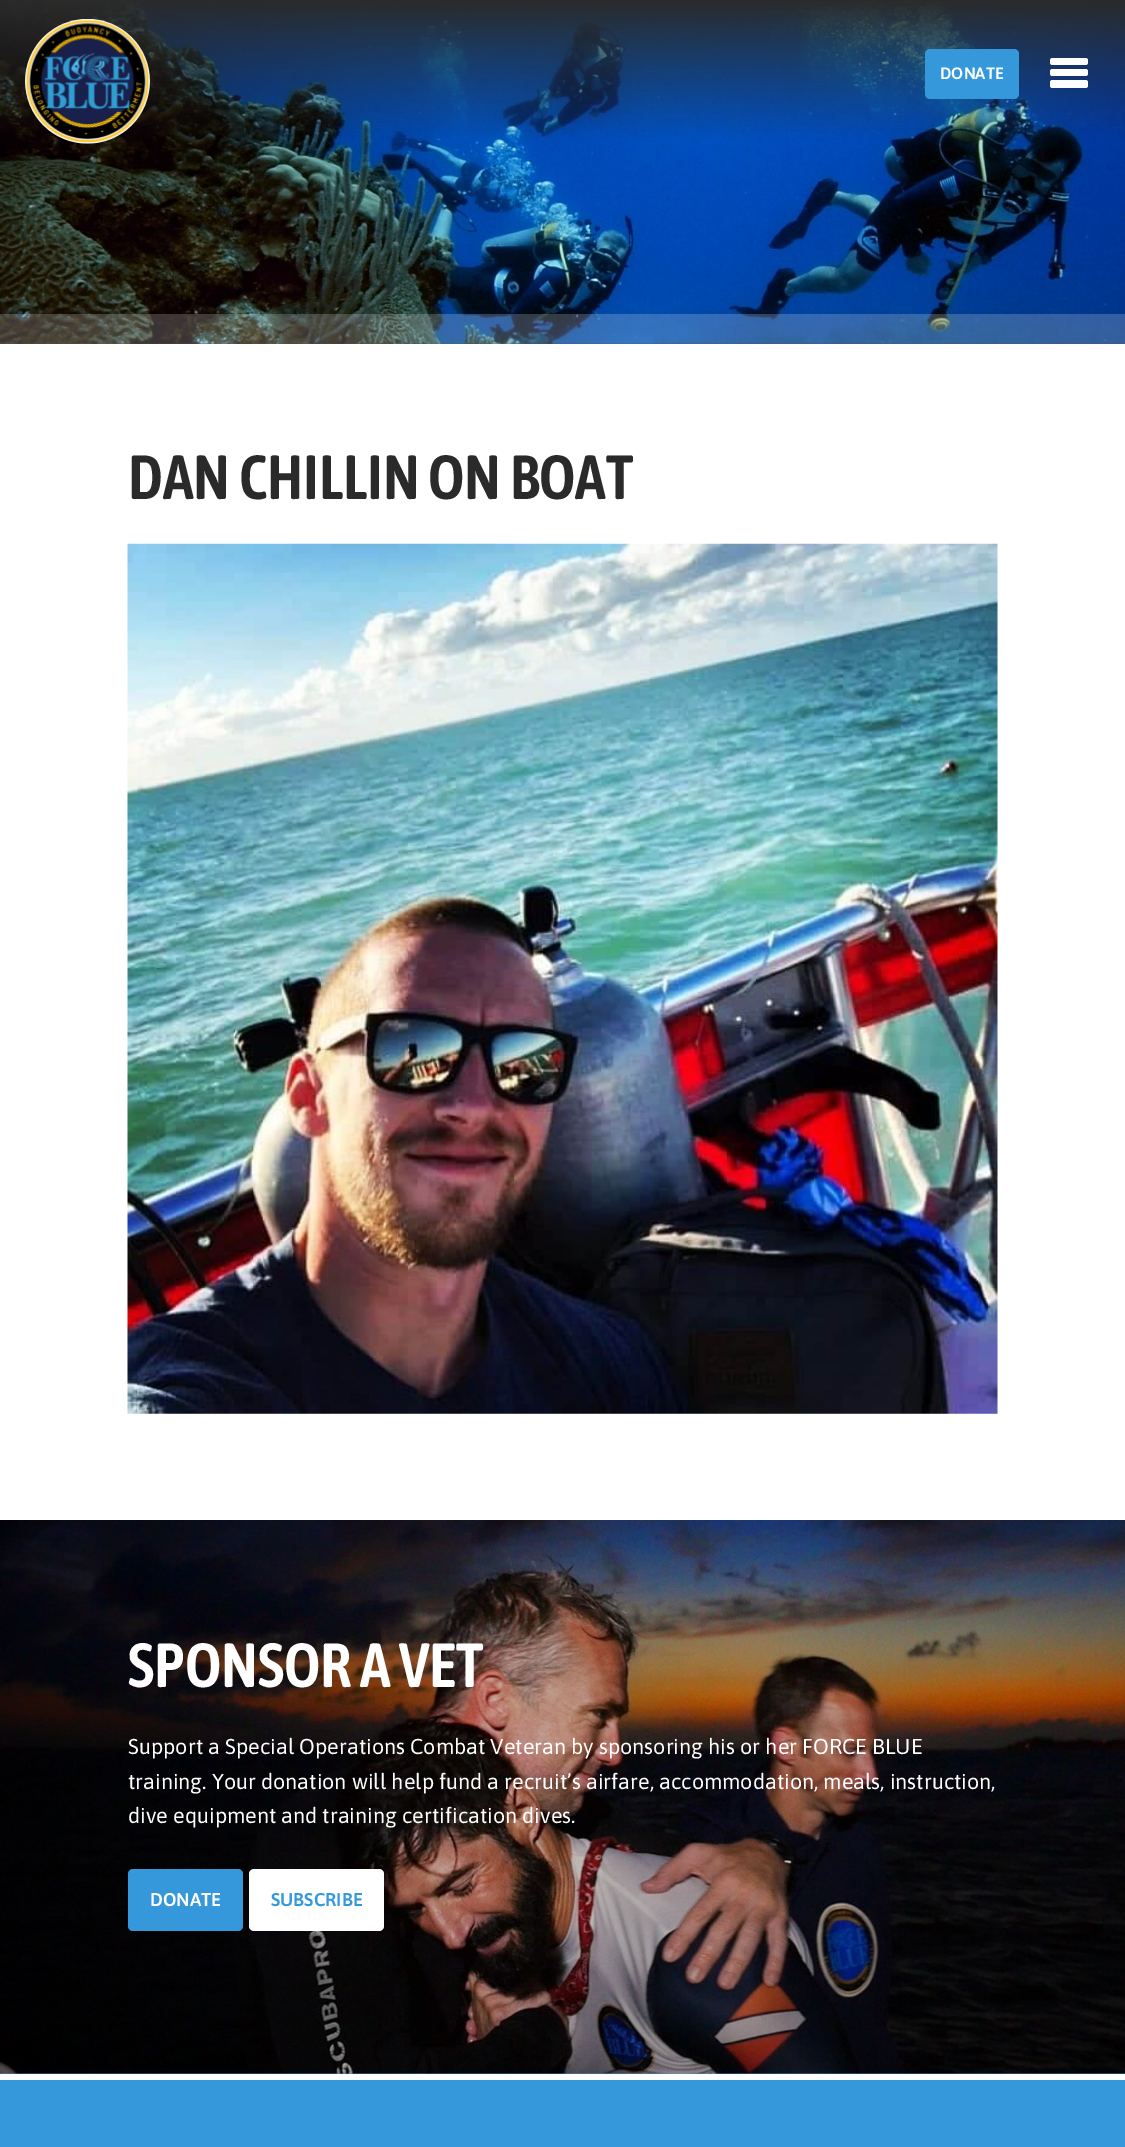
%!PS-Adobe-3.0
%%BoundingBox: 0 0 1125 2147
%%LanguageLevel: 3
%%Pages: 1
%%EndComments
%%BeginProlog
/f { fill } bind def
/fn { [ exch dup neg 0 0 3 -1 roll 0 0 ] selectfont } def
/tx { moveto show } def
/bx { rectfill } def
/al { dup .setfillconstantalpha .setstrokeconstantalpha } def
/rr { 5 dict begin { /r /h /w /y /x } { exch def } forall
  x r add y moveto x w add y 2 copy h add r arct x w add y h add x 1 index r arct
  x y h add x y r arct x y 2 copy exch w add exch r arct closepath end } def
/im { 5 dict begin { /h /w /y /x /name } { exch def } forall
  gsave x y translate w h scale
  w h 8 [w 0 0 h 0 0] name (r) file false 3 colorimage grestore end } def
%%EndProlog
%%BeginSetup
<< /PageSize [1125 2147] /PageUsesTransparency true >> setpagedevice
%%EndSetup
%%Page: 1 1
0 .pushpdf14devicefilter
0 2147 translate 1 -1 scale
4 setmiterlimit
1 setgray
0 0 1125 2147 bx
(image0.raw) 0 0 1125 344 im
0.2 al
0 314 1125 30 bx
1 al
(image1.raw) 25 19 125 125 im
0.204 0.596 0.859 setrgbcolor
925 49 94 50 5 rr f
/Asap-SemiBold 16.5 fn
1 setgray
(DONATE) 940 79 tx
1050 58 38 7 2.5 rr f
1050 69 38 7 2.5 rr f
1050 80 38 8 2.5 rr f
/AsapCondensed-SemiBold 62.25 fn
0.165 setgray
(DAN CHILLIN ON BOAT) 128 499 tx
(image2.raw) 127 543 871 871 im
0.204 0.596 0.859 setrgbcolor
0 2073 1125 1 bx
(image3.raw) 0 1520 1125 554 im
1 setgray
(SPONSOR A VET) 128 1687 tx
/Asap-Regular 21.55 fn
(Support a Special Operations Combat Veteran by sponsoring his or her FORCE BLUE) 128 1754 tx
(training. Your donation will help fund a recruit’s airfare, accommodation, meals, instruction,) 128 1789 tx
(dive equipment and training certification dives.) 128 1823 tx
0.204 0.596 0.859 setrgbcolor
128 1869 115 62 5 rr f
/Asap-SemiBold 18.5 fn
1 setgray
(DONATE) 150 1906 tx
249 1869 135 62 5 rr f
0.204 0.596 0.859 setrgbcolor
(SUBSCRIBE) 271 1906 tx
0 2080 1125 67 bx
.poppdf14devicefilter showpage
%%EOF
